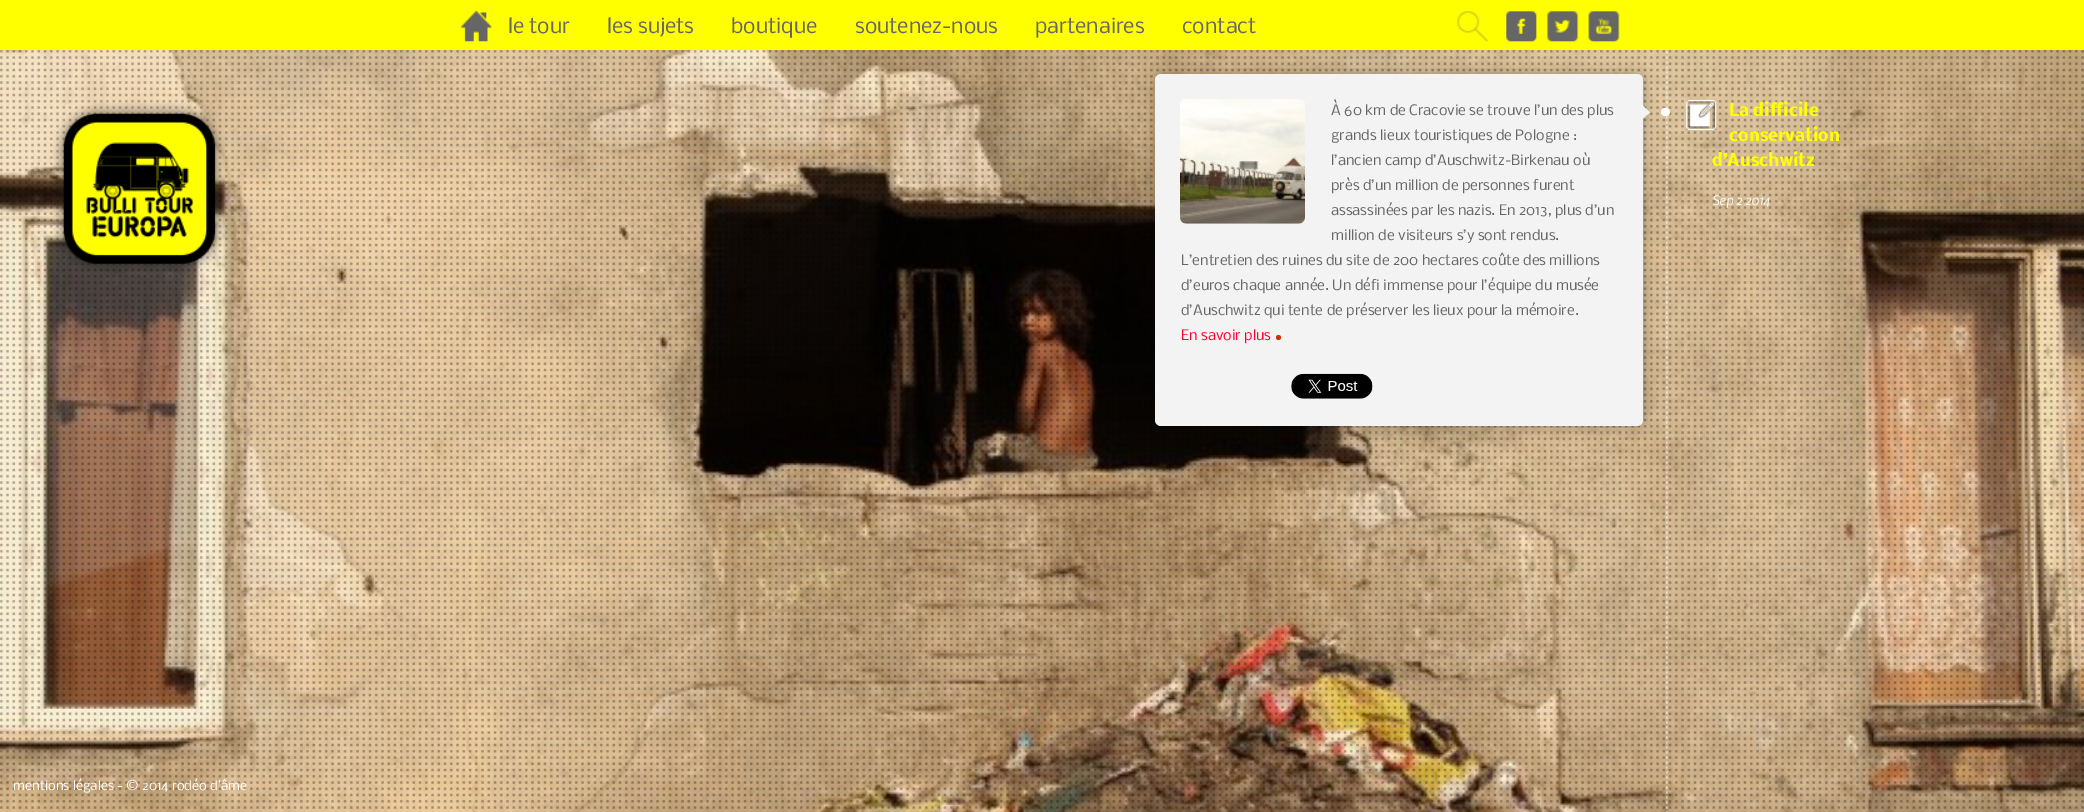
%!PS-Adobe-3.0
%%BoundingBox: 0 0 2084 812
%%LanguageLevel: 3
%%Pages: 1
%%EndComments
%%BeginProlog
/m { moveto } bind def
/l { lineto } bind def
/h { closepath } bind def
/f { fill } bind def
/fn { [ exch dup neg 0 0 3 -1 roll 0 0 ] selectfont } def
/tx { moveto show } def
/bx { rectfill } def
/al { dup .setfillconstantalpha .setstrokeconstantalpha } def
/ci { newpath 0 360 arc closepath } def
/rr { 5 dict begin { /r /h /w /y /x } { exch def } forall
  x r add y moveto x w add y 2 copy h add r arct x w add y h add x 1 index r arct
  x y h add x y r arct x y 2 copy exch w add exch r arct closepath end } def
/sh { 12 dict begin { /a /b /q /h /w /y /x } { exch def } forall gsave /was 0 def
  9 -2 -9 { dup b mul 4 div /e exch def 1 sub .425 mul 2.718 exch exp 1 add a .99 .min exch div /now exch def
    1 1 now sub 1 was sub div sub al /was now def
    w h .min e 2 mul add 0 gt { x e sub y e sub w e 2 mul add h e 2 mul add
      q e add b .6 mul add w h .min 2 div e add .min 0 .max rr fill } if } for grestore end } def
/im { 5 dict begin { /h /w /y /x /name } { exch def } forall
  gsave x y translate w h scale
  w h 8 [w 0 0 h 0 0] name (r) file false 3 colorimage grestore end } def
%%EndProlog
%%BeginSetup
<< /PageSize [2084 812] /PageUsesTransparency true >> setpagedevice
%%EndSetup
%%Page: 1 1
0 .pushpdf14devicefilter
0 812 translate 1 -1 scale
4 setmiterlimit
1 setgray
0 0 2084 812 bx
1 1 0 setrgbcolor
0 0 2084 50 bx
(image0.raw) 461 11 31 31 im
/Nobile-Regular 20 fn
0.4 setgray
(le tour) 508 33 tx
(les sujets) 607 33 tx
(boutique) 731 33 tx
(soutenez-nous) 855 33 tx
(partenaires) 1035 33 tx
(contact) 1182 33 tx
(image1.raw) 1457 11 31 31 im
(image2.raw) 1506 11 31 31 im
(image3.raw) 1547 11 32 31 im
(image4.raw) 1588 11 32 31 im
(image5.raw) 0 50 2084 762 im
(image6.raw) 0 50 2084 759 im
(image7.raw) 1666 51 2 761 im
(image8.raw) 53 103 173 169 im
0 setgray
1155 74 488 352 6 7.5 0.3 sh
0.953 setgray
1155 74 488 352 6 rr f
(image9.raw) 1180 99 125 125 im
/Nobile-Regular 13.75 fn
0.4 setgray
(À 60 km de Cracovie se trouve l’un des plus) 1331 115 tx
(grands lieux touristiques de Pologne :) 1331 140 tx
(l’ancien camp d’Auschwitz-Birkenau où) 1331 165 tx
(près d’un million de personnes furent) 1331 190 tx
(assassinées par les nazis. En 2013, plus d’un) 1331 215 tx
(million de visiteurs s’y sont rendus.) 1331 240 tx
(L’entretien des ruines du site de 200 hectares coûte des millions) 1181 265 tx
(d’euros chaque année. Un défi immense pour l’équipe du musée) 1181 290 tx
(d’Auschwitz qui tente de préserver les lieux pour la mémoire.) 1181 315 tx
1 0 0.2 setrgbcolor
(En savoir plus) 1181 340 tx
0.8 0.2 0 setrgbcolor
1278.5 337.5 2.5 ci f
(image10.raw) 1291 373 82 26 im
0.953 setgray
1641 120 m 1641 104 l 1650 112.5 l h f
1 setgray
1661 108 9 8 4 rr f
(image11.raw) 1686 100 31 30 im
/Nobile-Bold 16.25 fn
1 1 0 setrgbcolor
(La difficile) 1729 116 tx
(conservation) 1729 141 tx
(d’Auschwitz) 1712 166 tx
/Nobile-Italic 12.5 fn
1 setgray
(Sep 2 2014) 1712 205 tx
/Nobile-Regular 12.5 fn
(mentions légales - © 2014 rodéo d’âme) 13 790 tx
.poppdf14devicefilter showpage
%%EOF
